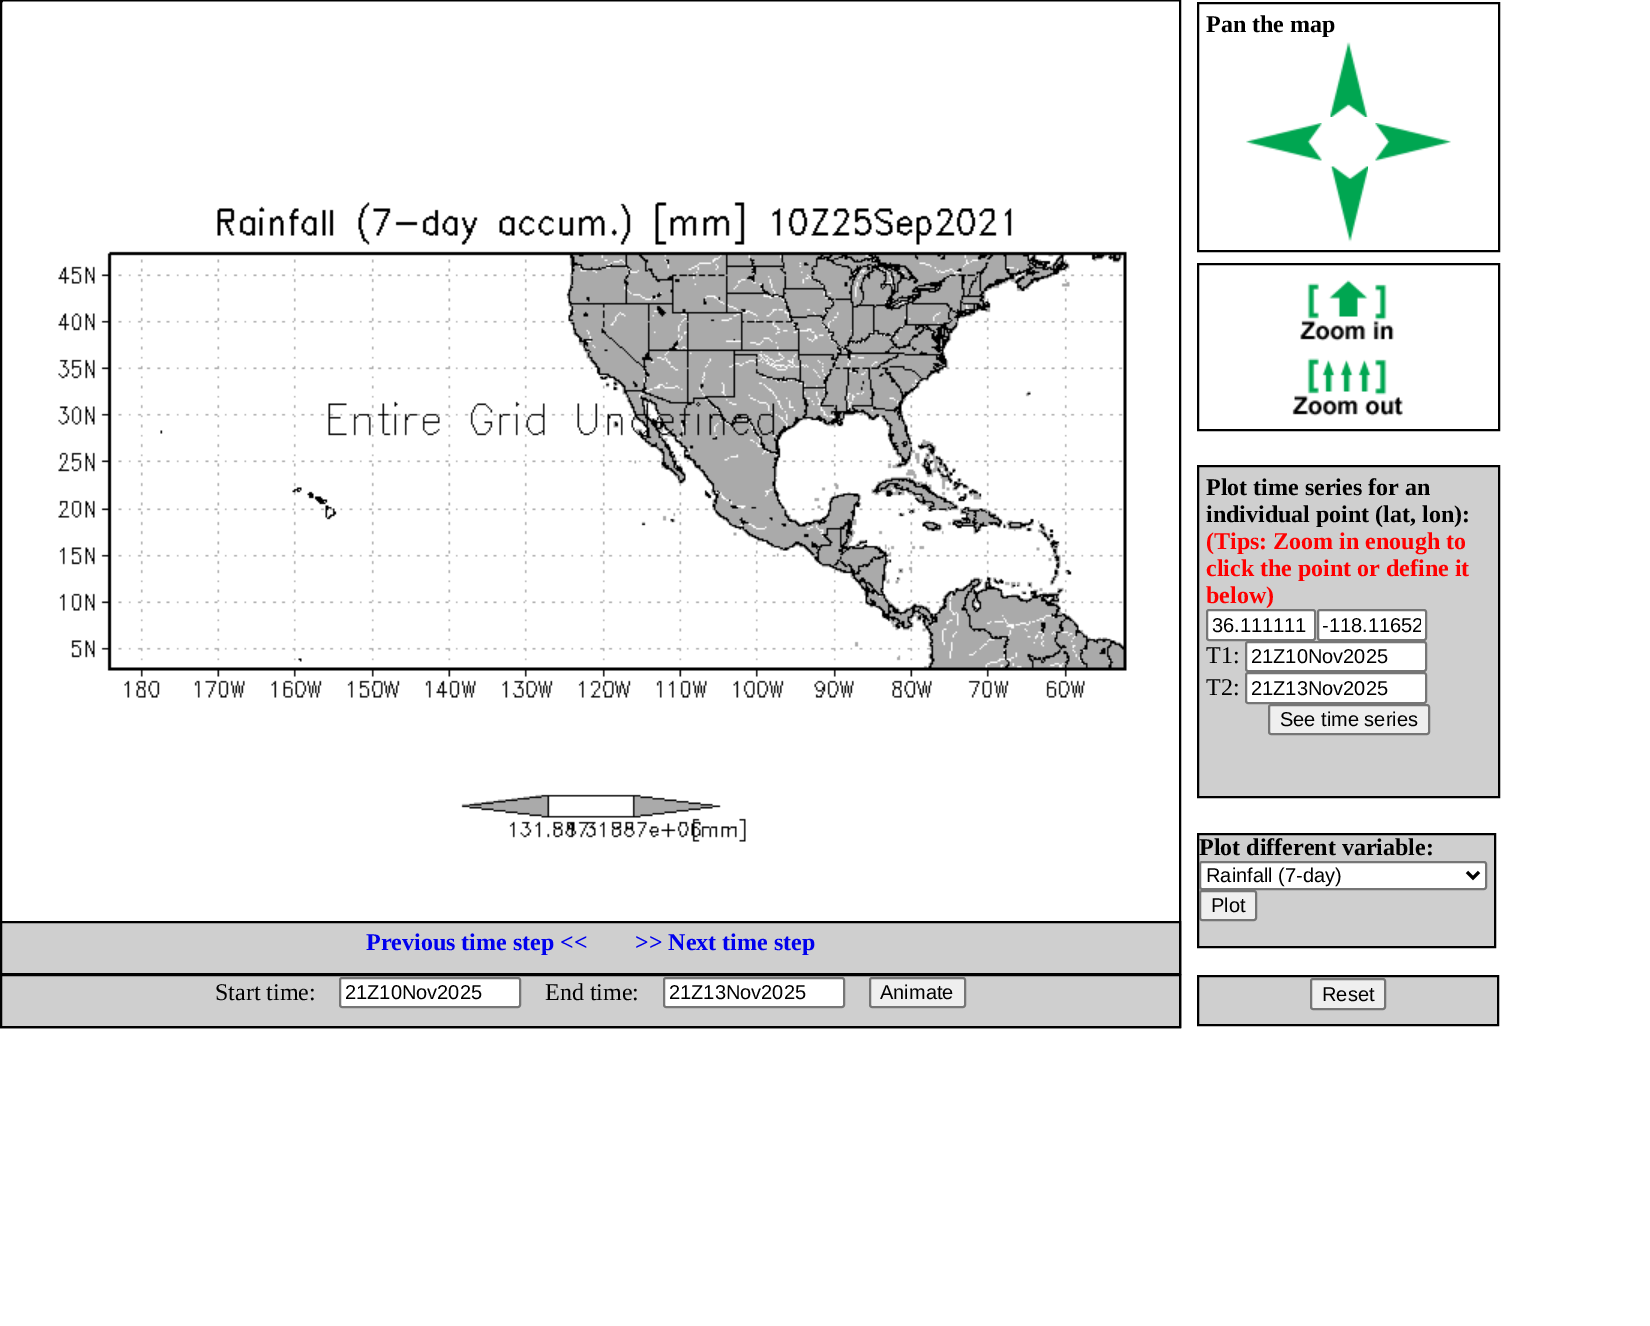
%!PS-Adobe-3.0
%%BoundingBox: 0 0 1650 1326
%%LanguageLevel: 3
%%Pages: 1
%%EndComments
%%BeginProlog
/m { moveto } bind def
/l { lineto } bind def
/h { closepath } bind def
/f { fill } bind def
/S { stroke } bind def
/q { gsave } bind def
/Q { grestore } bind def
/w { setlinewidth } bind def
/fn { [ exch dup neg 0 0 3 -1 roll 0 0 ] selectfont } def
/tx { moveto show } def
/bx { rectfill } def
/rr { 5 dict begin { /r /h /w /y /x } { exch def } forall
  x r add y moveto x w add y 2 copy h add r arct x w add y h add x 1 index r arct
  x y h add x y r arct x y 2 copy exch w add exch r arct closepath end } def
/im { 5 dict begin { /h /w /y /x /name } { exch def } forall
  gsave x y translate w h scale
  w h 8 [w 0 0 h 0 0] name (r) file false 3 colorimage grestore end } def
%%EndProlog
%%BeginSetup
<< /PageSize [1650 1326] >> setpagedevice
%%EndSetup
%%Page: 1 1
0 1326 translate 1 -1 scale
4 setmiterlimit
1 setgray
0 0 1650 1326 bx
0 setgray
2 w
1 1 1179 1026 rectstroke
(image0.raw) 3 1 1176 841 im
1198 3 301 248 rectstroke
/LiberationSerif-Bold 24 fn
(Pan the map) 1206 32 tx
(image1.raw) 1330 42 38 75 im
(image2.raw) 1246 123 76 38 im
(image3.raw) 1375 123 76 38 im
(image4.raw) 1330 166 38 76 im
1198 264 301 166 rectstroke
(image5.raw) 1300 280 94 61 im
(image6.raw) 1292 358 111 58 im
0.812 setgray
1198 466 m 1499 466 l 1499 797 l 1198 797 l h q f Q
0 setgray
S
(Plot time series for an) 1206 495 tx
(individual point \(lat, lon\):) 1206 522 tx
1 0 0 setrgbcolor
(\(Tips: Zoom in enough to) 1206 549 tx
(click the point or define it) 1206 576 tx
(below\)) 1206 603 tx
1 setgray
1207 610 108 30 2 rr q f Q
0.463 setgray
S
/LiberationSans-Regular 20 fn
0 setgray
(36.111111) 1212 632 tx
1 setgray
1318 610 108 30 2 rr q f Q
0.463 setgray
S
q
1323 614 98 22 rectclip
0 setgray
(-118.11652) 1322 632 tx
Q
/LiberationSerif-Regular 24 fn
0 setgray
(T1:) 1206 663 tx
1 setgray
1246 642 180 29 2 rr q f Q
0.463 setgray
S
/LiberationSans-Regular 20 fn
0 setgray
(21Z10Nov2025) 1251 663 tx
/LiberationSerif-Regular 24 fn
(T2:) 1206 695 tx
1 setgray
1246 673 180 30 2 rr q f Q
0.463 setgray
S
/LiberationSans-Regular 20 fn
0 setgray
(21Z13Nov2025) 1251 695 tx
0.937 setgray
1269 705 160 29 2 rr q f Q
0.463 setgray
S
0 setgray
(See time series) 1280 726 tx
0.812 setgray
1198 834 m 1495 834 l 1495 947 l 1198 947 l h q f Q
0 setgray
S
/LiberationSerif-Bold 24 fn
(Plot different variable:) 1199 855 tx
1 setgray
1200 862 286 27 2 rr q f Q
0.463 setgray
S
0 setgray
3 w
1467 872 m 1473 878 l 1479 872 l S
/LiberationSans-Regular 20 fn
(Rainfall \(7-day\)) 1206 882 tx
0.937 setgray
1200 891 56 29 2 rr q f Q
0.463 setgray
2 w
S
0 setgray
(Plot) 1211 912 tx
0.812 setgray
1 922 m 1180 922 l 1180 974 l 1 974 l h q f Q
0 setgray
S
/LiberationSerif-Bold 24 fn
0 0 0.933 setrgbcolor
(Previous time step <<) 366 950 tx
(>> Next time step) 635 950 tx
0.812 setgray
1 975 m 1180 975 l 1180 1027 l 1 1027 l h q f Q
0 setgray
S
/LiberationSerif-Regular 24 fn
(Start time:) 215 1000 tx
1 setgray
340 978 180 29 2 rr q f Q
0.463 setgray
S
/LiberationSans-Regular 20 fn
0 setgray
(21Z10Nov2025) 345 999 tx
/LiberationSerif-Regular 24 fn
(End time:) 545 1000 tx
1 setgray
664 978 180 29 2 rr q f Q
0.463 setgray
S
/LiberationSans-Regular 20 fn
0 setgray
(21Z13Nov2025) 669 999 tx
0.937 setgray
870 978 95 29 2 rr q f Q
0.463 setgray
S
0 setgray
(Animate) 880 999 tx
0.812 setgray
1198 976 m 1498 976 l 1498 1025 l 1198 1025 l h q f Q
0 setgray
S
0.937 setgray
1311 979 74 30 2 rr q f Q
0.463 setgray
S
0 setgray
(Reset) 1322 1001 tx
showpage
%%EOF
